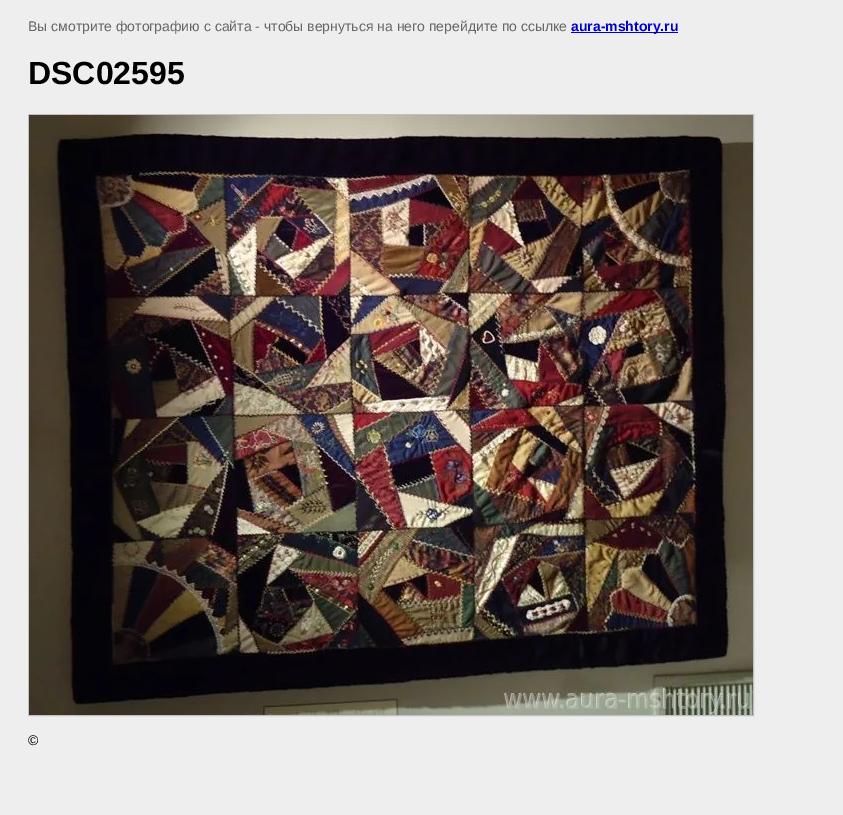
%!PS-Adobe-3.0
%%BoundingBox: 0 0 843 815
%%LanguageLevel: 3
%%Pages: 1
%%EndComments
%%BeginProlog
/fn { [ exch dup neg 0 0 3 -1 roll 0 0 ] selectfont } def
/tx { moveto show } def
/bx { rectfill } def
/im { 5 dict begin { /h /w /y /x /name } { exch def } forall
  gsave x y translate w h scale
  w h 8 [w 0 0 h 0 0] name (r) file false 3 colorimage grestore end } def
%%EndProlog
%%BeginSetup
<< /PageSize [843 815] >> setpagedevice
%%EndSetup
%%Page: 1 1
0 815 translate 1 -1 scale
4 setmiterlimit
0.933 setgray
0 0 843 815 bx
/LiberationSans-Regular 14 fn
0.4 setgray
(Вы смотрите фотографию с сайта - чтобы вернуться на него перейдите по ссылке) 28 31 tx
0 0 0.8 setrgbcolor
571 32 107 1 bx
/LiberationSans-Bold 14 fn
(aura-mshtory.ru) 571 31 tx
/LiberationSans-Bold 32 fn
0 setgray
(DSC02595) 28 84 tx
0.753 setgray
28.5 114.5 725 601 rectstroke
(image0.raw) 29 115 724 600 im
/LiberationSans-Regular 14 fn
0 setgray
(©) 28 745 tx
showpage
%%EOF
